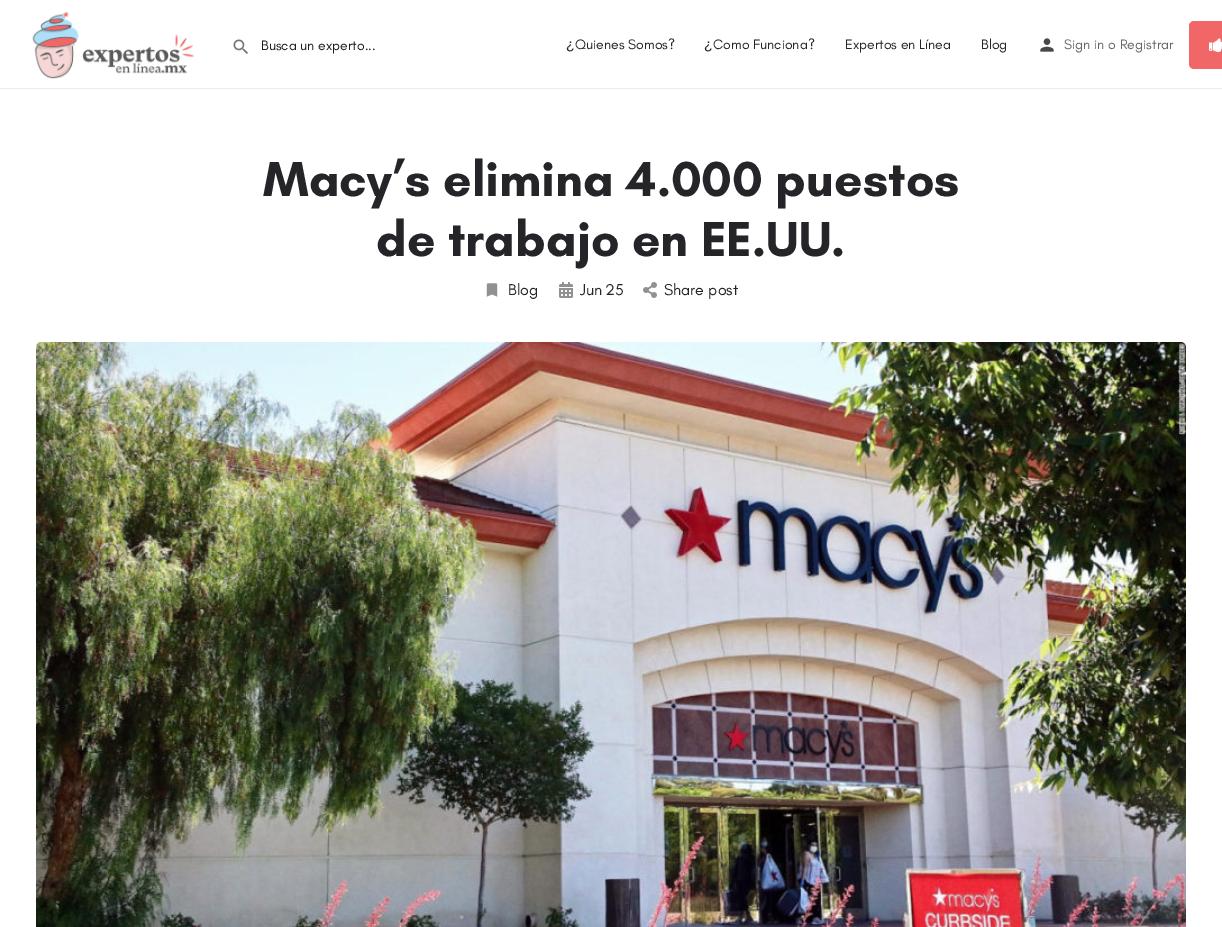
%!PS-Adobe-3.0
%%BoundingBox: 0 0 1222 927
%%LanguageLevel: 3
%%Pages: 1
%%EndComments
%%BeginProlog
/f { fill } bind def
/fn { [ exch dup neg 0 0 3 -1 roll 0 0 ] selectfont } def
/tx { moveto show } def
/bx { rectfill } def
/rr { 5 dict begin { /r /h /w /y /x } { exch def } forall
  x r add y moveto x w add y 2 copy h add r arct x w add y h add x 1 index r arct
  x y h add x y r arct x y 2 copy exch w add exch r arct closepath end } def
/im { 5 dict begin { /h /w /y /x /name } { exch def } forall
  gsave x y translate w h scale
  w h 8 [w 0 0 h 0 0] name (r) file false 3 colorimage grestore end } def
%%EndProlog
%%BeginSetup
<< /PageSize [1222 927] >> setpagedevice
%%EndSetup
%%Page: 1 1
0 927 translate 1 -1 scale
4 setmiterlimit
1 setgray
0 0 1222 927 bx
(image0.raw) 32 11 163 68 im
(image1.raw) 233 39 15 15 im
/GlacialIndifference-Regular 14 fn
0.114 0.114 0.137 setrgbcolor
(Busca un experto...) 261 50 tx
/LiberationSans-Regular 14 fn
0.141 0.141 0.161 setrgbcolor
(¿) 566 49 tx
/GlacialIndifference-Regular 14 fn
(Quienes Somos?) 575 49 tx
/LiberationSans-Regular 14 fn
(¿) 704 49 tx
/GlacialIndifference-Regular 14 fn
(Como Funciona?) 713 49 tx
(Expertos en Línea) 845 49 tx
(Blog) 981 49 tx
(image2.raw) 1040 38 14 14 im
0.4 0.4 0.412 setrgbcolor
(Sign in o Registrar) 1064 49 tx
0.945 0.404 0.408 setrgbcolor
1189 21 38 48 5 rr f
(image3.raw) 1209 38 13 14 im
0.922 setgray
0 88 1222 1 bx
/GlacialIndifference-Bold 50 fn
0.141 0.141 0.161 setrgbcolor
(Macy’s elimina 4.000 puestos) 263 196 tx
(de trabajo en EE.UU.) 376 256 tx
(image4.raw) 486 283 12 14 im
/GlacialIndifference-Regular 16 fn
(Blog) 508 295 tx
(image5.raw) 559 282 14 16 im
(Jun) 580 295 tx
(25) 605 295 tx
(image6.raw) 643 282 14 16 im
(Share post) 664 295 tx
(image7.raw) 36 342 1150 585 im
showpage
%%EOF
